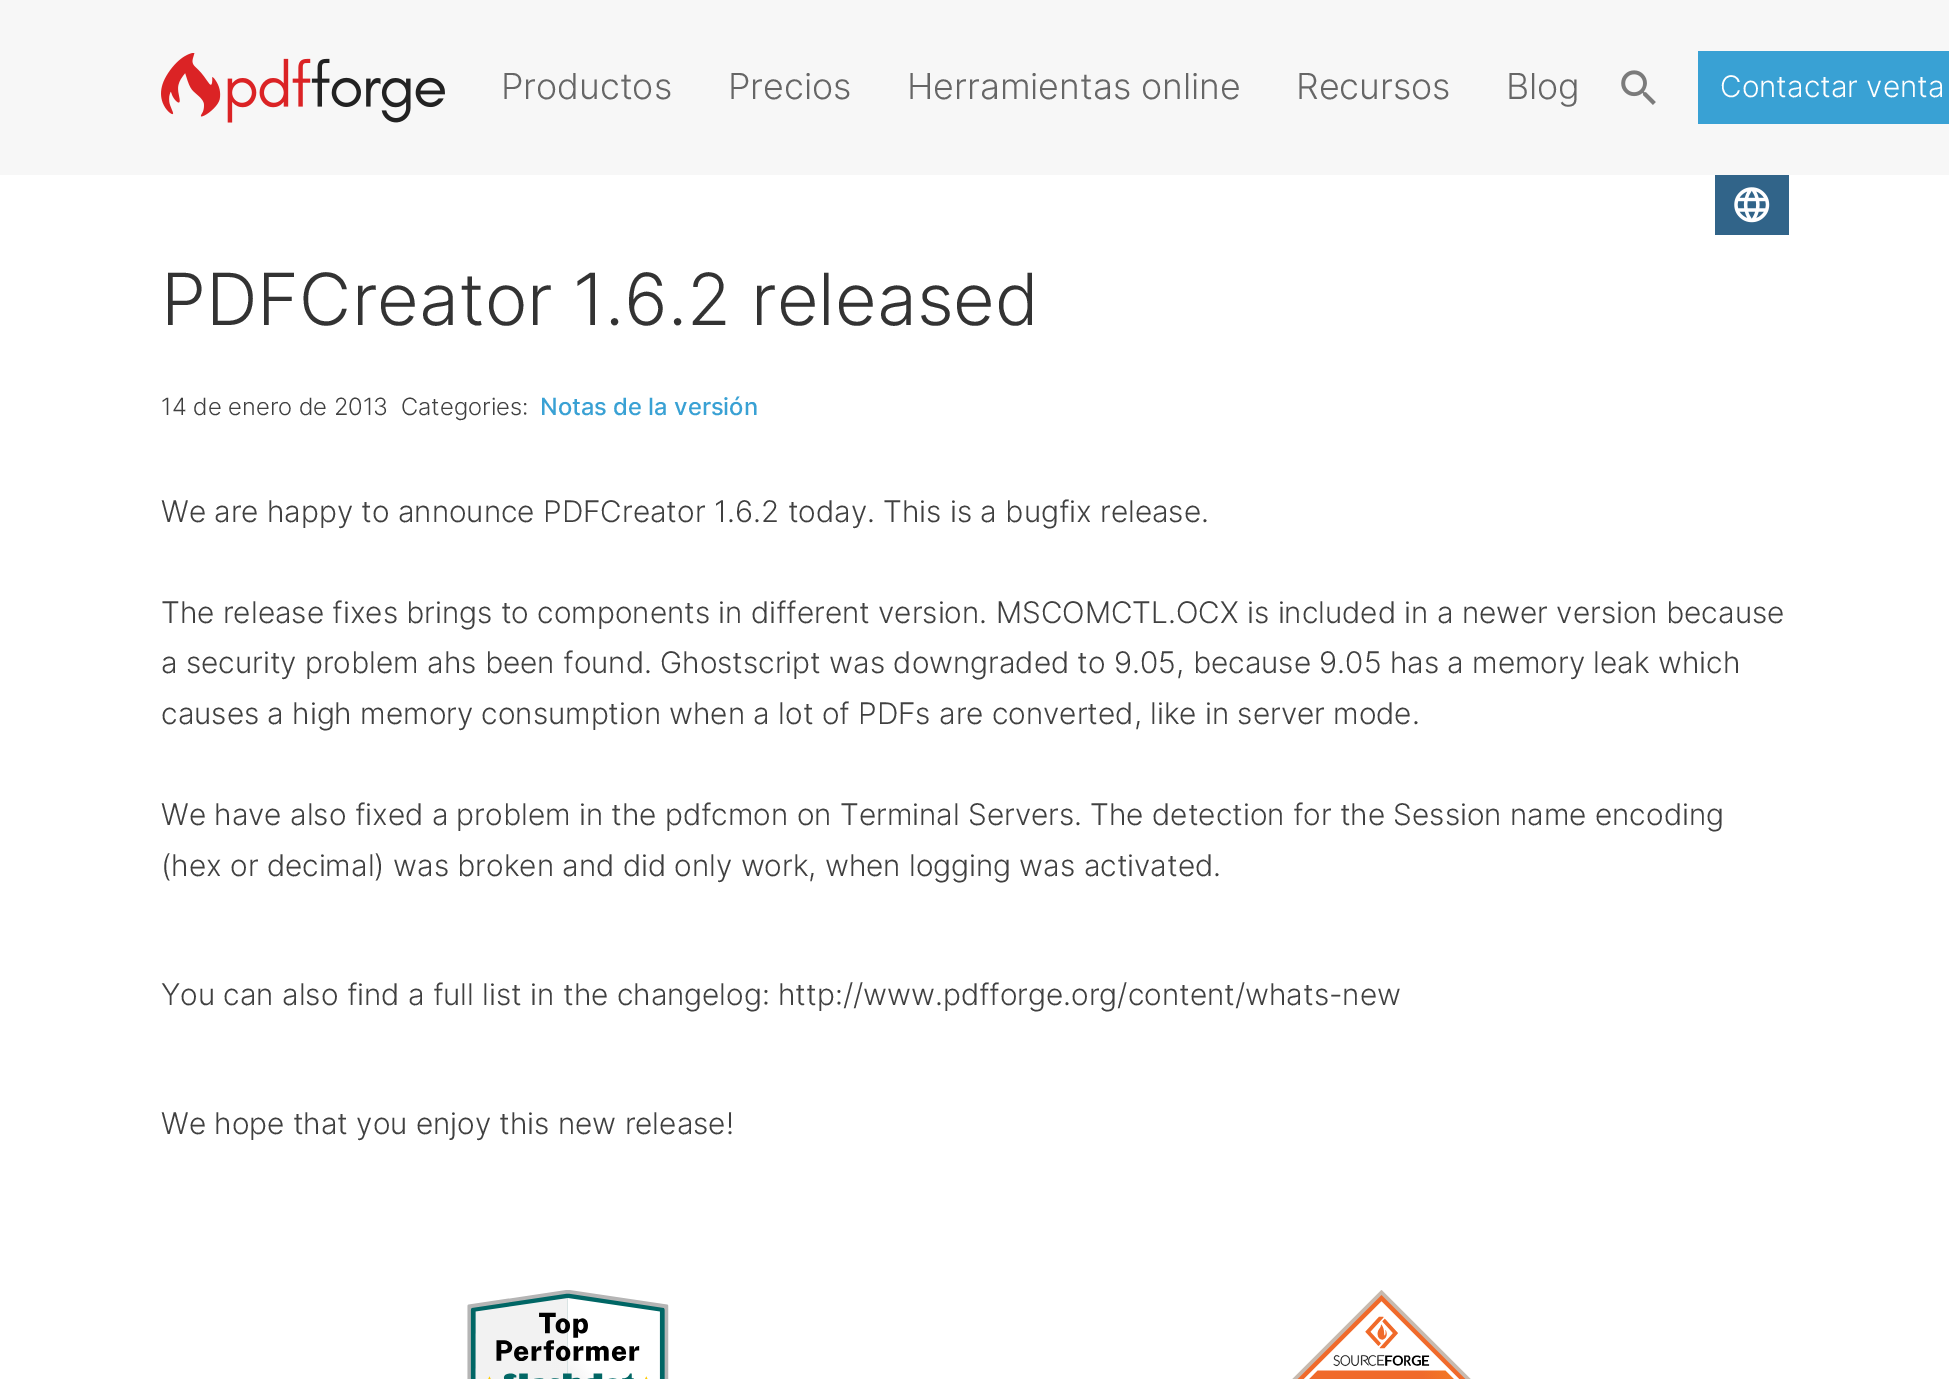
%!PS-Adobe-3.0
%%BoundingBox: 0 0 1949 1379
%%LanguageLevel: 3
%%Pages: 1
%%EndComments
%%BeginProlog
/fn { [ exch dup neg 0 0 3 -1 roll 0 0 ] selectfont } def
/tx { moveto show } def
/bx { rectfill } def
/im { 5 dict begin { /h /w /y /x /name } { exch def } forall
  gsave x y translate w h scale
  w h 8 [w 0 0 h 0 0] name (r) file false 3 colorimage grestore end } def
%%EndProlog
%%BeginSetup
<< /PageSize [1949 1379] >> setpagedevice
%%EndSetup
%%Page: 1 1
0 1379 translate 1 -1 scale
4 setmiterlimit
1 setgray
0 0 1949 1379 bx
0.969 setgray
0 0 1949 175 bx
(image0.raw) 161 53 284 70 im
/Inter-Light 35.75 fn
0.4 setgray
(Productos) 501 99 tx
(Precios) 728 99 tx
(Herramientas online) 907 99 tx
(Recursos) 1296 99 tx
(Blog) 1506 99 tx
(image1.raw) 1621 70 35 35 im
0.224 0.631 0.831 setrgbcolor
1698 51 251 73 bx
/Inter-Light 29.75 fn
1 setgray
(Contactar venta) 1720 97 tx
0.192 0.392 0.537 setrgbcolor
1715 175 74 60 bx
(image2.raw) 1734 187 36 36 im
/Inter-Light 71.8 fn
0.2 setgray
(PDFCreator 1.6.2 released) 161 325 tx
/Inter-Light 23.75 fn
0.251 setgray
(14 de enero de 2013) 161 415 tx
(Categories:) 401 415 tx
/Inter-Medium 23.75 fn
0.224 0.631 0.831 setrgbcolor
(Notas de la versión) 540 415 tx
/Inter-Light 29.75 fn
0.251 setgray
(We are happy to announce PDFCreator 1.6.2 today. This is a bugfix release.) 161 522 tx
(The release fixes brings to components in different version. MSCOMCTL.OCX is included in a newer version because) 161 623 tx
(a security problem ahs been found. Ghostscript was downgraded to 9.05, because 9.05 has a memory leak which) 161 673 tx
(causes a high memory consumption when a lot of PDFs are converted, like in server mode.) 161 724 tx
(We have also fixed a problem in the pdfcmon on Terminal Servers. The detection for the Session name encoding) 161 825 tx
(\(hex or decimal\) was broken and did only work, when logging was activated.) 161 876 tx
(You can also find a full list in the changelog: http://www.pdfforge.org/content/whats-new) 161 1005 tx
(We hope that you enjoy this new release!) 161 1134 tx
(image3.raw) 467 1290 202 89 im
(image4.raw) 1292 1290 179 89 im
showpage
%%EOF
